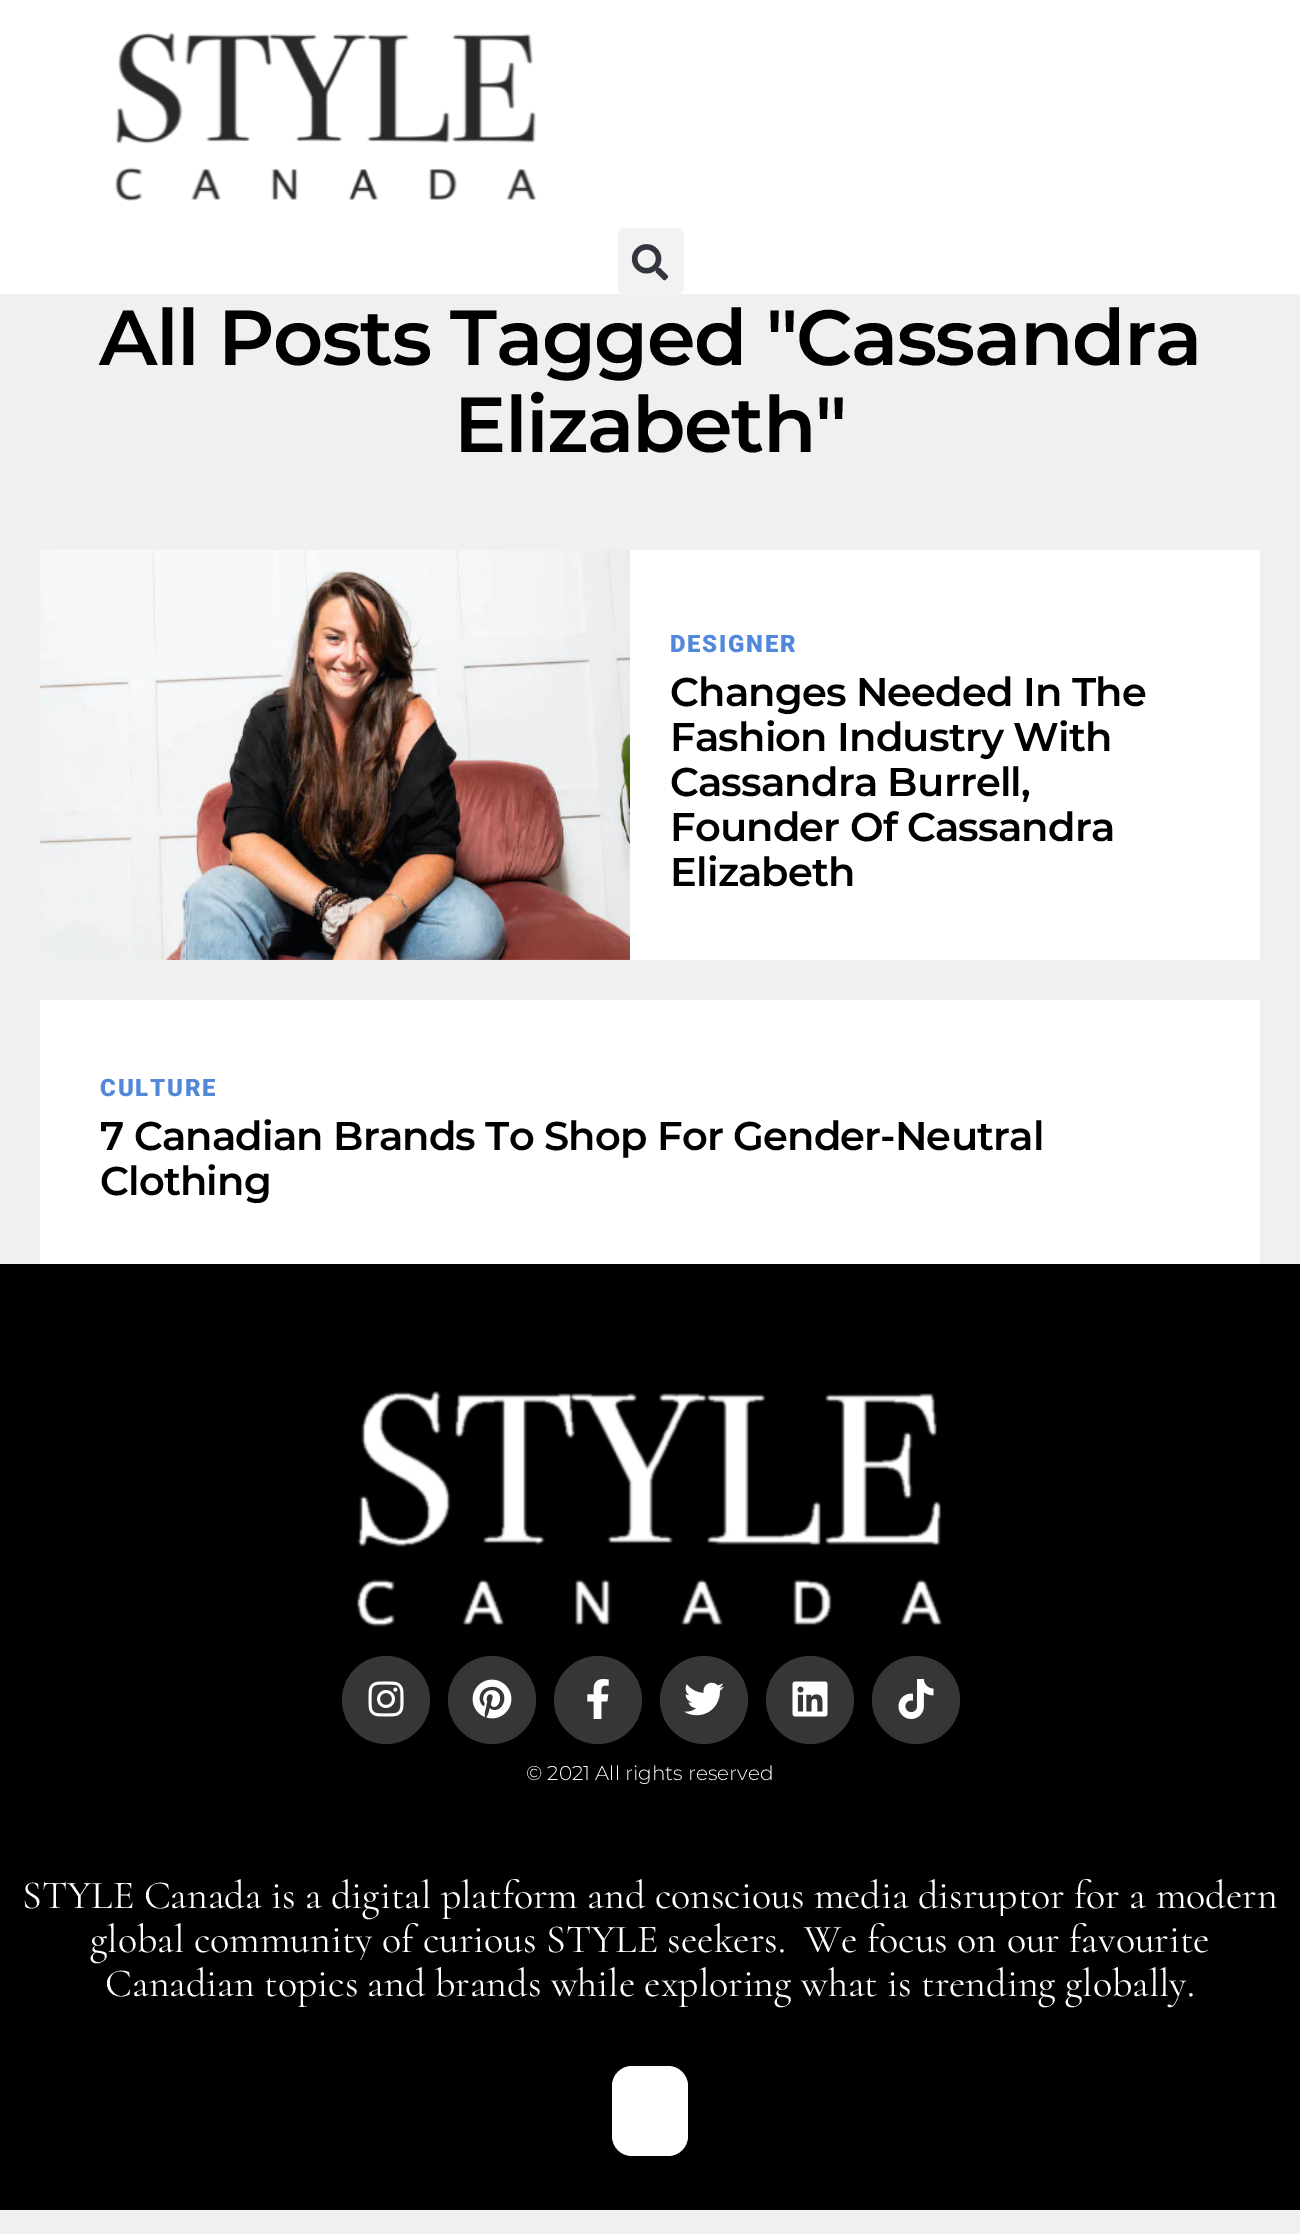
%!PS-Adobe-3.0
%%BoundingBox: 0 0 1300 2234
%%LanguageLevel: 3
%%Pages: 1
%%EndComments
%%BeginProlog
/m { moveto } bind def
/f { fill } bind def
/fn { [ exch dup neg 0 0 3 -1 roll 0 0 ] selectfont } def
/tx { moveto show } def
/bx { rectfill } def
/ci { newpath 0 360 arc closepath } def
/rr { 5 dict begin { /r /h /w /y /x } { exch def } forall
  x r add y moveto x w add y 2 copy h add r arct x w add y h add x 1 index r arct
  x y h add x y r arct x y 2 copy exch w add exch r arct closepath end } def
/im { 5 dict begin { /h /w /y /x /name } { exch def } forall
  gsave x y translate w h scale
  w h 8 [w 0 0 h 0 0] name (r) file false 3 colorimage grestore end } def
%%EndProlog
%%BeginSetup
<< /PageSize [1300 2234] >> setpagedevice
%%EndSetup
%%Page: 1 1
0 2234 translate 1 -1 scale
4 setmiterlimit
0.941 setgray
0 0 1300 2234 bx
1 setgray
0 0 1300 294 bx
(image0.raw) 115 32 422 169 im
0.949 setgray
618 228 66 66 6 rr f
(image1.raw) 631 244 38 37 im
/Montserrat-SemiBold 78 fn
0 setgray
99 365 m -1.55 0 (All Posts Tagged "Cassandra) ashow
454 452 m -1.55 0 (Elizabeth") ashow
1 setgray
40 550 1220 410 bx
(image2.raw) 40 550 590 410 im
/Roboto-Black 24 fn
0.318 0.533 0.851 setrgbcolor
670 652 m 1.75 0 (DESIGNER) ashow
/Montserrat-SemiBold 40 fn
0 setgray
670 706 m -0.8 0 (Changes Needed In The) ashow
670 751 m -0.8 0 (Fashion Industry With) ashow
670 796 m -0.8 0 (Cassandra Burrell,) ashow
670 841 m -0.8 0 (Founder Of Cassandra) ashow
670 886 m -0.8 0 (Elizabeth) ashow
1 setgray
40 1000 1220 264 bx
/Roboto-Black 24 fn
0.318 0.533 0.851 setrgbcolor
100 1096 m 1.75 0 (CULTURE) ashow
/Montserrat-SemiBold 40 fn
0 setgray
100 1150 m -0.8 0 (7 Canadian Brands To Shop For Gender-Neutral) ashow
100 1195 m -0.8 0 (Clothing) ashow
0 1264 1300 946 bx
(image3.raw) 356 1391 587 236 im
0.212 setgray
386 1700 44 ci f
(image4.raw) 368 1681 36 36 im
492 1700 44 ci f
(image5.raw) 472 1679 40 40 im
598 1700 44 ci f
(image6.raw) 587 1679 22 40 im
704 1700 44 ci f
(image7.raw) 684 1682 40 34 im
810 1700 44 ci f
(image8.raw) 792 1681 36 36 im
916 1700 44 ci f
(image9.raw) 898 1679 36 40 im
/Montserrat-Light 20 fn
1 setgray
(© 2021 All rights reserved) 526 1780 tx
/Cormorant-Regular 40 fn
(STYLE Canada is a digital platform and conscious media disruptor for a modern) 22 1908 tx
(global community of curious STYLE seekers.) 90 1952 tx
(We focus on our favourite) 804 1952 tx
0 setgray
998 1916 10 3 bx
1 setgray
(Canadian topics and brands while exploring what is trending globally.) 105 1996 tx
0 setgray
353 1960 8 4 bx
1 setgray
612 2066 76 90 20 rr f
showpage
%%EOF
